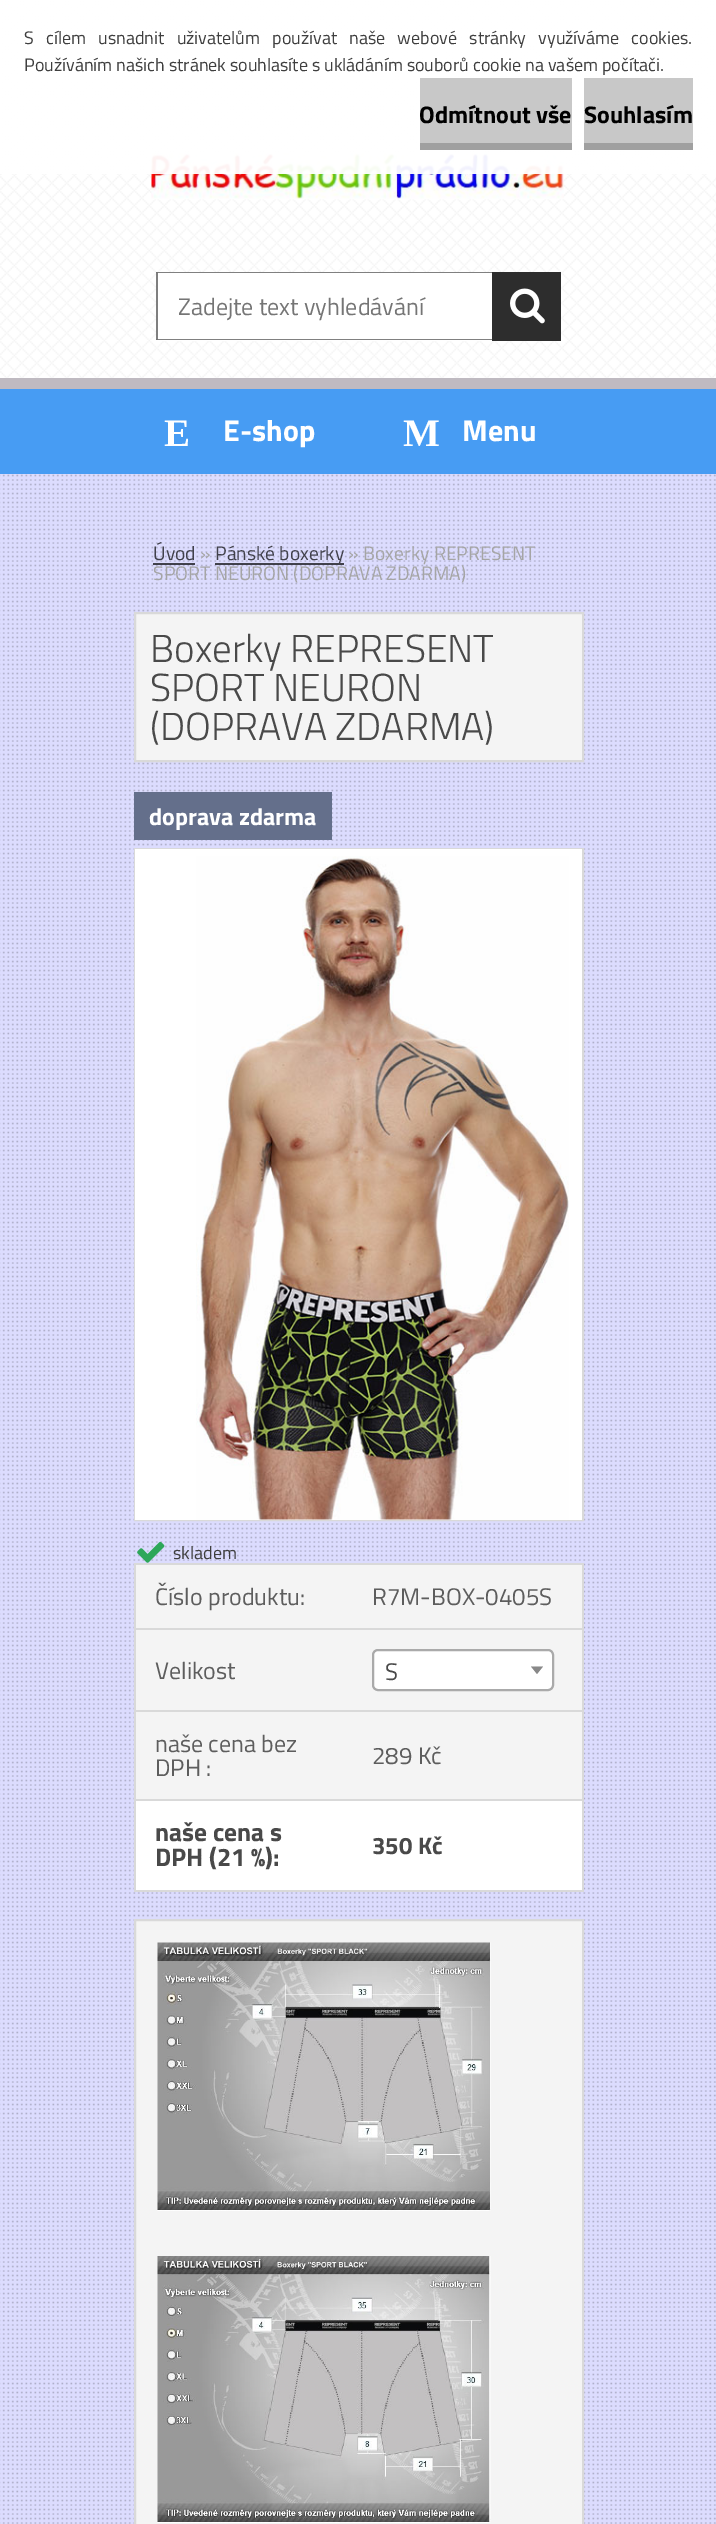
%!PS-Adobe-3.0
%%BoundingBox: 0 0 716 2524
%%LanguageLevel: 3
%%Pages: 1
%%EndComments
%%BeginProlog
/m { moveto } bind def
/l { lineto } bind def
/h { closepath } bind def
/f { fill } bind def
/S { stroke } bind def
/q { gsave } bind def
/Q { grestore } bind def
/w { setlinewidth } bind def
/fn { [ exch dup neg 0 0 3 -1 roll 0 0 ] selectfont } def
/tx { moveto show } def
/bx { rectfill } def
/al { dup .setfillconstantalpha .setstrokeconstantalpha } def
/rr { 5 dict begin { /r /h /w /y /x } { exch def } forall
  x r add y moveto x w add y 2 copy h add r arct x w add y h add x 1 index r arct
  x y h add x y r arct x y 2 copy exch w add exch r arct closepath end } def
/im { 5 dict begin { /h /w /y /x /name } { exch def } forall
  gsave x y translate w h scale
  w h 8 [w 0 0 h 0 0] name (r) file false 3 colorimage grestore end } def
%%EndProlog
%%BeginSetup
<< /PageSize [716 2524] /PageUsesTransparency true >> setpagedevice
%%EndSetup
%%Page: 1 1
0 .pushpdf14devicefilter
0 2524 translate 1 -1 scale
4 setmiterlimit
0.863 0.863 0.996 setrgbcolor
0 0 716 2524 bx
1 setgray
0 0 716 378 bx
(image0.raw) 0 0 716 378 im
(image1.raw) 151 152 413 48 im
0.95 al
0 0 716 174 bx
/TitilliumWeb-Regular 18 fn
1 al
0.247 setgray
24 44 m 8.25 0 32 (S cílem usnadnit uživatelům používat naše webové stránky využíváme cookies.) widthshow
(Používáním našich stránek souhlasíte s ukládáním souborů cookie na vašem počítači.) 24 71 tx
0.784 setgray
420 78 152 65 bx
0.627 setgray
420 143 152 7 bx
/TitilliumWeb-Bold 24 fn
0 setgray
(Odmítnout vše) 419 123 tx
0.784 setgray
584 78 109 65 bx
0.627 setgray
584 143 109 7 bx
0 setgray
(Souhlasím) 584 123 tx
0.278 0.612 0.953 setrgbcolor
0 389 716 85 bx
0.749 0.729 0.757 setrgbcolor
0 378 716 11 bx
1 setgray
156 272 336 69 bx
0.502 setgray
156 272 m 492 272 l 492 273 l 158 273 l h f
492 340 m 156 340 l 158 339 l 492 339 l h f
0.5 al
0 setgray
156 340 m 156 272 l 158 273 l 158 339 l h f
/TitilliumWeb-Regular 24 fn
1 al
0.459 setgray
(Zadejte text vyhledávání) 178 315 tx
0.176 setgray
492 272 69 69 bx
(image2.raw) 510 288 35 36 im
(image3.raw) 0 474 716 2050 im
/LiberationSerif-Bold 39 fn
1 setgray
(E) 164 446 tx
/TitilliumWeb-Bold 30 fn
(E-shop) 223 441 tx
/LiberationSerif-Bold 39 fn
(M) 403 446 tx
/TitilliumWeb-Bold 30 fn
(Menu) 462 441 tx
/TitilliumWeb-Regular 19.5 fn
0.255 0.255 0.294 setrgbcolor
(Úvod) 153 560 tx
0.7 al
0 setgray
153 563 42 2 bx
1 al
0.647 setgray
(») 200 560 tx
0.7 al
0 setgray
215 563 129 2 bx
1 al
0.255 0.255 0.294 setrgbcolor
(Pánské boxerky) 215 560 tx
0.647 setgray
(» Boxerky REPRESENT) 348 560 tx
(SPORT NEURON \(DOPRAVA ZDARMA\)) 153 580 tx
0.957 setgray
135 613 m 583 613 l 583 761 l 135 761 l h q f Q
0.851 setgray
2 w
S
/TitilliumWeb-Light 39 fn
0.286 setgray
(Boxerky REPRESENT) 150 662 tx
(SPORT NEURON) 150 701 tx
(\(DOPRAVA ZDARMA\)) 150 740 tx
0.392 0.435 0.545 setrgbcolor
134 792 198 48 bx
/TitilliumWeb-Bold 24 fn
1 setgray
(doprava zdarma) 149 825 tx
0.851 setgray
135 849 448 671 rectstroke
1 setgray
135 849 447 671 bx
(image4.raw) 196 856 373 664 im
(image5.raw) 137 1541 28 22 im
/TitilliumWeb-Regular 18 fn
0.247 setgray
(skladem) 173 1559 tx
1 setgray
136 1801 446 89 bx
0.851 setgray
134 1563 450 2 bx
582 1563 2 329 bx
134 1890 450 2 bx
134 1563 2 329 bx
0.957 setgray
136 1565 446 63 bx
/TitilliumWeb-Regular 24 fn
0.365 setgray
(Číslo produktu:) 155 1605 tx
(R7M-BOX-0405S) 372 1605 tx
0.957 setgray
136 1630 446 80 bx
0.851 setgray
134 1628 450 2 bx
0.365 setgray
(Velikost) 155 1679 tx
1 setgray
373 1650 180 40 5 rr q f Q
0.667 setgray
S
0.286 setgray
(S) 385 1680 tx
0.533 setgray
531 1666.5 m 543 1666.5 l 537 1674 l h f
0.957 setgray
136 1712 446 87 bx
0.851 setgray
134 1710 450 2 bx
0.365 setgray
(naše cena bez) 155 1752 tx
(DPH :) 155 1776 tx
(289 Kč) 372 1764 tx
0.851 setgray
134 1799 450 2 bx
/TitilliumWeb-Bold 25.5 fn
0.286 setgray
(naše cena s) 155 1841 tx
(DPH \(21 %\):) 155 1866 tx
/TitilliumWeb-Bold 24 fn
(350 Kč) 372 1854 tx
0.957 setgray
135 1920 m 583 1920 l 583 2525 l 135 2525 l h q f Q
0.851 setgray
S
(image6.raw) 157 1942 334 269 im
(image7.raw) 157 2256 334 267 im
.poppdf14devicefilter showpage
%%EOF
